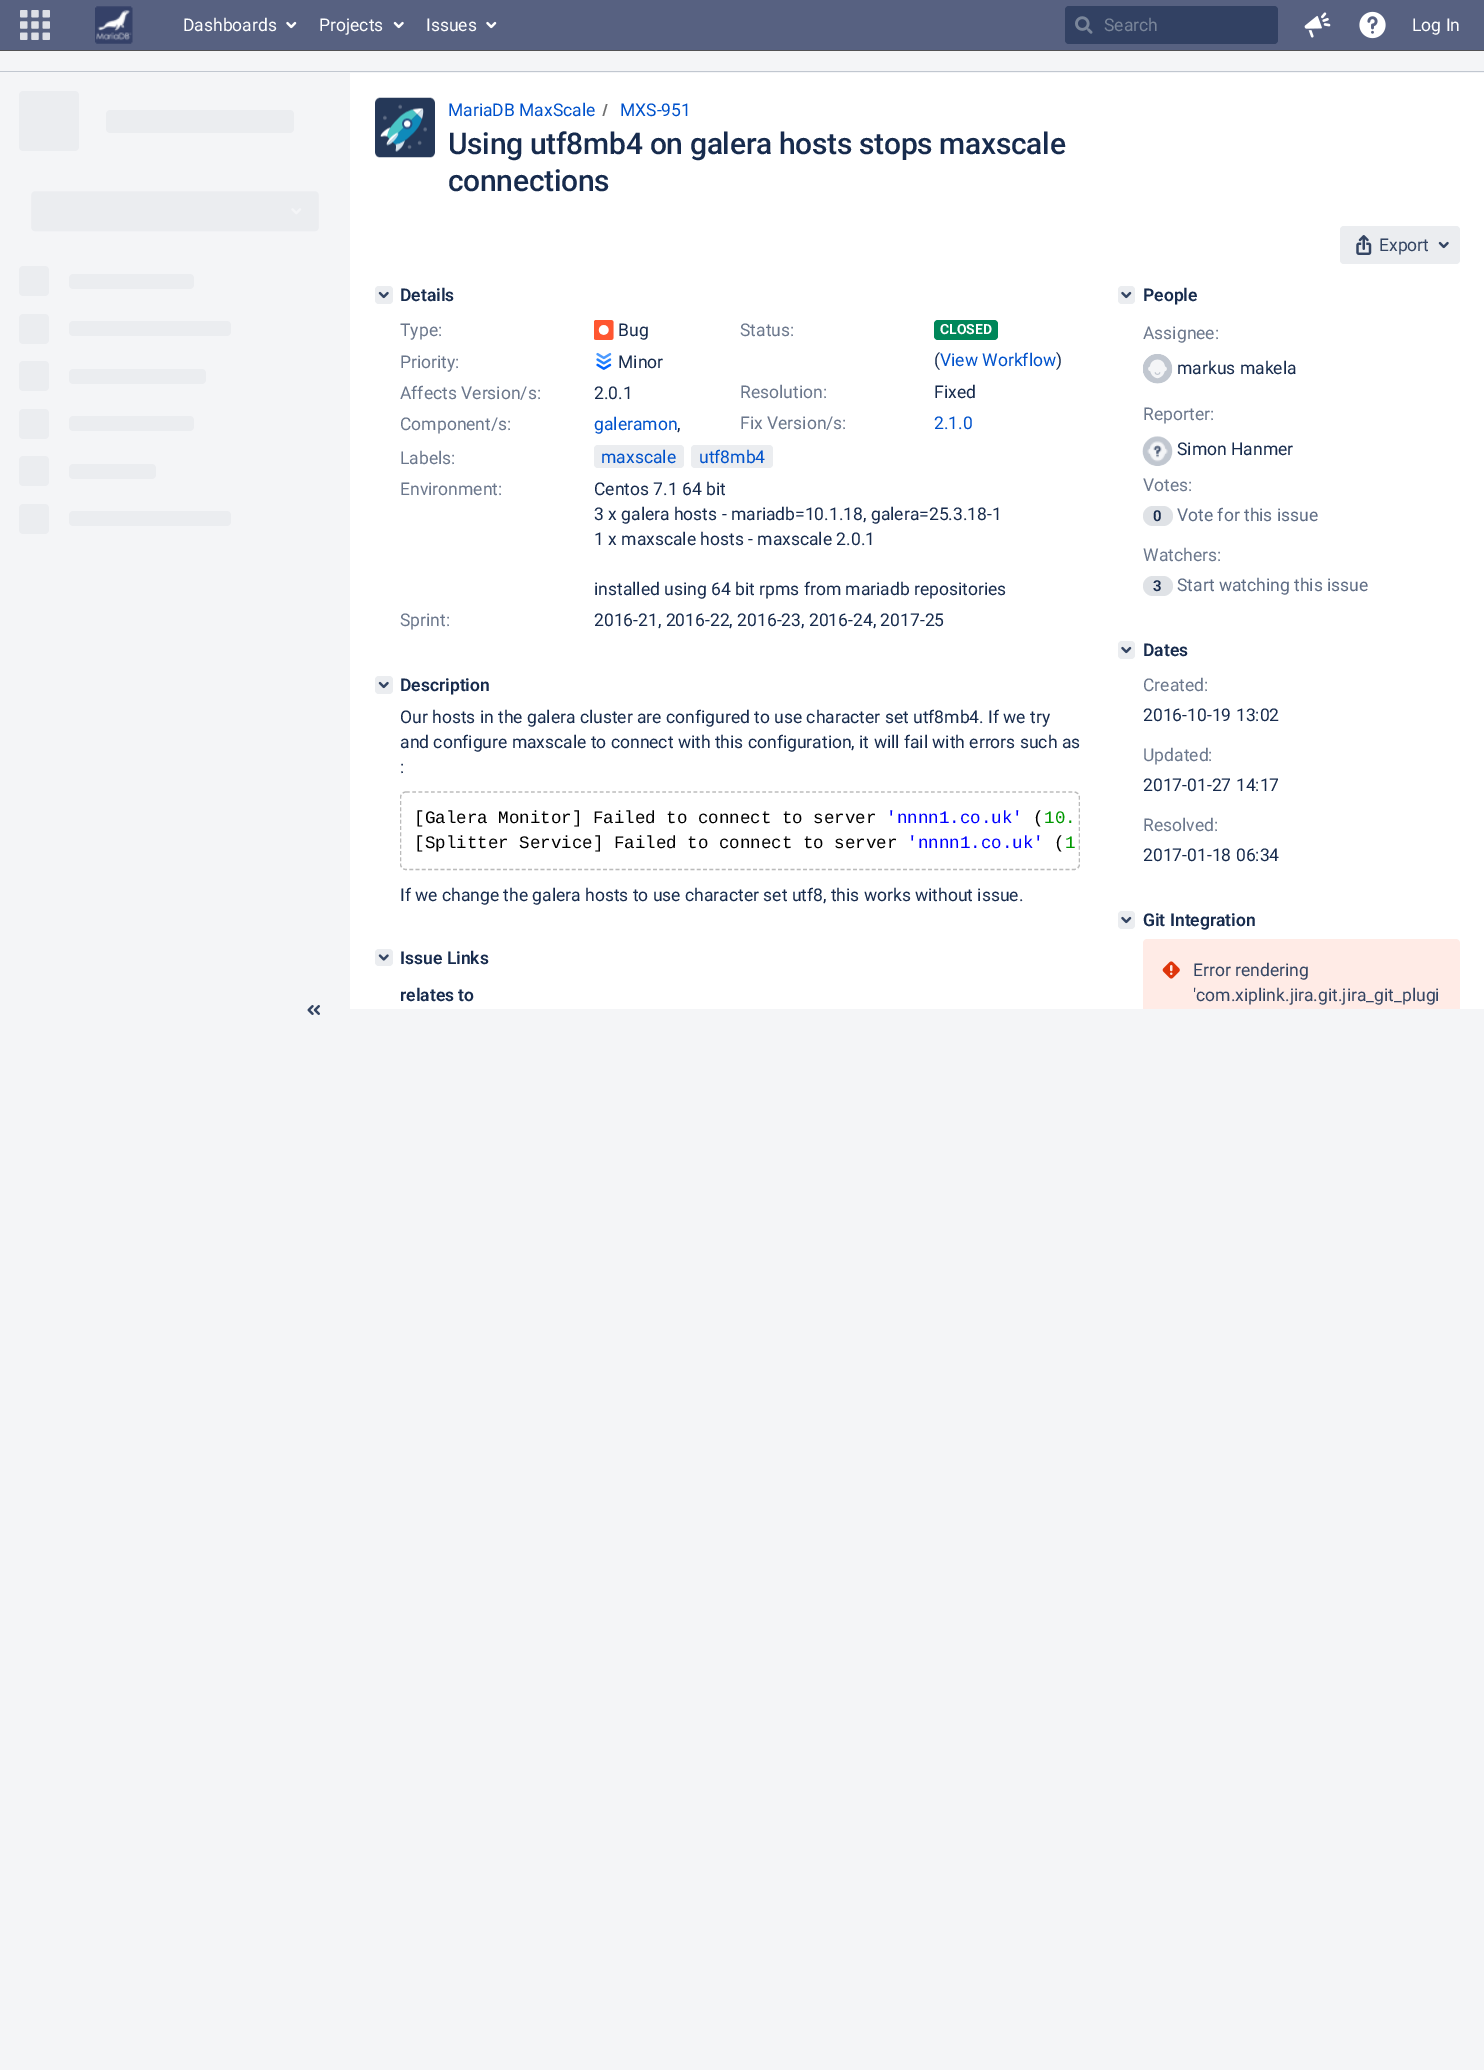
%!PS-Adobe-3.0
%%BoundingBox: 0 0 1484 2070
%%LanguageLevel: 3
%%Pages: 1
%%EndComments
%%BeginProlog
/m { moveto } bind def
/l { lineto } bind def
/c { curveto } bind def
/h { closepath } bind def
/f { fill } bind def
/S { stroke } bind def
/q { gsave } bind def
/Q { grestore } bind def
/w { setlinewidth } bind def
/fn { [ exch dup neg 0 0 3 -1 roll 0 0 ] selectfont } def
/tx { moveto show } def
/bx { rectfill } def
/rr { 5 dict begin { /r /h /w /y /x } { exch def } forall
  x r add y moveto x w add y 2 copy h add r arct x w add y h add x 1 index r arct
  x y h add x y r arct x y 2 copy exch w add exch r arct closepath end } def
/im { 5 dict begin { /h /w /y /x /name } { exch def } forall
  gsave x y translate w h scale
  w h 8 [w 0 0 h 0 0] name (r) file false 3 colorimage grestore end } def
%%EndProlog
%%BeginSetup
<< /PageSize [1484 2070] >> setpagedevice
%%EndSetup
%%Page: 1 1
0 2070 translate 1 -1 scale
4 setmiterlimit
0.957 0.961 0.969 setrgbcolor
0 0 1484 2070 bx
0.341 0.38 0.506 setrgbcolor
0 0 1484 50 bx
0.322 0.322 0.329 setrgbcolor
0 50 1484 1 bx
(image0.raw) 20 10 30 30 im
(image1.raw) 95 6 38 38 im
/Roboto-Regular 17.5 fn
1 setgray
(Dashboards) 183 31 tx
(image2.raw) 286 21 11 8 im
(Projects) 319 31 tx
(image3.raw) 393 21 11 8 im
(Issues) 426 31 tx
(image2.raw) 486 21 11 8 im
0.196 0.255 0.388 setrgbcolor
1065 6 213 38 4 rr f
(image4.raw) 1075 16 18 18 im
0.478 0.525 0.604 setrgbcolor
(Search) 1104 31 tx
(image5.raw) 1304 12 27 26 im
(image6.raw) 1359 11 27 28 im
1 setgray
(Log In) 1412 31 tx
0.757 0.78 0.816 setrgbcolor
0 71 1484 1 bx
(image7.raw) 19 91 300 443 im
(image8.raw) 307 1005 13 10 im
1 setgray
350 73 1134 936 bx
(image9.raw) 375 97 60 61 im
0 0.322 0.8 setrgbcolor
(MariaDB MaxScale) 448 116 tx
0.439 setgray
604 116 m 607.5 104 l 606 104 l 602.5 116 l h f
0 0.322 0.8 setrgbcolor
(MXS-951) 620 116 tx
/Roboto-Medium 30 fn
0.09 0.169 0.302 setrgbcolor
448 154 m -0.3 0 (Using utf8mb4 on galera hosts stops maxscale) ashow
448 191 m -0.3 0 (connections) ashow
0.922 0.929 0.941 setrgbcolor
1340 226 120 38 4 rr f
(image10.raw) 1356 235 16 20 im
/Roboto-Regular 17.5 fn
0.204 0.271 0.388 setrgbcolor
(Export) 1379 251 tx
(image11.raw) 1438 241 11 8 im
0.922 0.929 0.941 setrgbcolor
375 286 18 18 4 rr f
(image12.raw) 378 291 11 8 im
/Roboto-SemiBold 17.5 fn
0.09 0.169 0.302 setrgbcolor
(Details) 400 301 tx
/Roboto-Regular 17.5 fn
0.42 0.467 0.549 setrgbcolor
(Type:) 400 336 tx
(image13.raw) 594 320 20 20 im
0.09 0.169 0.302 setrgbcolor
(Bug) 618 336 tx
0.42 0.467 0.549 setrgbcolor
(Status:) 740 336 tx
0 0.529 0.353 setrgbcolor
934 320 64 20 4 rr f
/Roboto-Bold 14 fn
1 setgray
(CLOSED) 940 334 tx
/Roboto-Regular 17.5 fn
0.09 0.169 0.302 setrgbcolor
(\() 934 366 tx
0 0.322 0.8 setrgbcolor
(View Workflow) 940 366 tx
0.09 0.169 0.302 setrgbcolor
(\)) 1056 366 tx
0.42 0.467 0.549 setrgbcolor
(Priority:) 400 368 tx
(image14.raw) 596 352 16 18 im
0.09 0.169 0.302 setrgbcolor
(Minor) 618 368 tx
0.42 0.467 0.549 setrgbcolor
(Affects Version/s:) 400 399 tx
0.09 0.169 0.302 setrgbcolor
(2.0.1) 594 399 tx
0.42 0.467 0.549 setrgbcolor
(Resolution:) 740 398 tx
0.09 0.169 0.302 setrgbcolor
(Fixed) 934 398 tx
0.42 0.467 0.549 setrgbcolor
(Component/s:) 400 430 tx
0 0.322 0.8 setrgbcolor
(galeramon) 594 430 tx
0.09 0.169 0.302 setrgbcolor
(,) 677 430 tx
0.42 0.467 0.549 setrgbcolor
(Fix Version/s:) 740 429 tx
0 0.322 0.8 setrgbcolor
(2.1.0) 934 429 tx
0.42 0.467 0.549 setrgbcolor
(Labels:) 400 464 tx
0.922 0.929 0.941 setrgbcolor
594 445 90 23 4 rr f
0 0.322 0.8 setrgbcolor
(maxscale) 601 463 tx
0.922 0.929 0.941 setrgbcolor
691 445 82 23 4 rr f
0 0.322 0.8 setrgbcolor
(utf8mb4) 699 463 tx
0.42 0.467 0.549 setrgbcolor
(Environment:) 400 495 tx
0.09 0.169 0.302 setrgbcolor
(Centos 7.1 64 bit) 594 495 tx
(3 x galera hosts - mariadb=10.1.18, galera=25.3.18-1) 594 520 tx
(1 x maxscale hosts - maxscale 2.0.1) 594 545 tx
(installed using 64 bit rpms from mariadb repositories) 594 595 tx
0.42 0.467 0.549 setrgbcolor
(Sprint:) 400 626 tx
0.09 0.169 0.302 setrgbcolor
(2016-21, 2016-22, 2016-23, 2016-24, 2017-25) 594 626 tx
0.922 0.929 0.941 setrgbcolor
375 676 18 18 4 rr f
(image12.raw) 378 681 11 8 im
/Roboto-SemiBold 17.5 fn
0.09 0.169 0.302 setrgbcolor
(Description) 400 691 tx
/Roboto-Regular 17.5 fn
(Our hosts in the galera cluster are configured to use character set utf8mb4. If we try) 400 723 tx
(and configure maxscale to connect with this configuration, it will fail with errors such as) 400 748 tx
(:) 400 773 tx
q
400 704 680 204 rectclip
0.733 setgray
1.2 w
[3.75 2.5] 0 setdash
406 792 m 1074 792 l 1077 792 1079.5 794.5 1079.5 797.5 c 1079.5 864 l 1079.5 867 1077 869.5 1074 869.5 c 406 869.5 l 403 869.5 400.5 867 400.5 864 c 400.5 797.5 l 400.5 794.5 403 792 406 792 c h S
Q
/LiberationMono-Regular 17.5 fn
0 setgray
([Galera Monitor] Failed to connect to server) 414 823 tx
0 0 1 setrgbcolor
('nnnn1.co.uk') 886 823 tx
0 setgray
(\() 1033 823 tx
0 0.6 0 setrgbcolor
(10.) 1044 823 tx
0 setgray
([Splitter Service] Failed to connect to server) 414 848 tx
0 0 1 setrgbcolor
('nnnn1.co.uk') 907 848 tx
0 setgray
(\() 1054 848 tx
0 0.6 0 setrgbcolor
(1) 1065 848 tx
/Roboto-Regular 17.5 fn
0.09 0.169 0.302 setrgbcolor
(If we change the galera hosts to use character set utf8, this works without issue.) 400 901 tx
0.922 0.929 0.941 setrgbcolor
375 949 18 17 4 rr f
(image15.raw) 378 954 11 7 im
/Roboto-SemiBold 17.5 fn
0.09 0.169 0.302 setrgbcolor
(Issue Links) 400 964 tx
(relates to) 400 1001 tx
0.922 0.929 0.941 setrgbcolor
1118 286 17 18 4 rr f
(image16.raw) 1121 291 11 8 im
0.09 0.169 0.302 setrgbcolor
(People) 1143 301 tx
/Roboto-Regular 17.5 fn
0.42 0.467 0.549 setrgbcolor
(Assignee:) 1143 339 tx
(image17.raw) 1143 354 30 30 im
0.09 0.169 0.302 setrgbcolor
(markus makela) 1177 374 tx
0.42 0.467 0.549 setrgbcolor
(Reporter:) 1143 420 tx
(image18.raw) 1142 436 31 30 im
0.09 0.169 0.302 setrgbcolor
(Simon Hanmer) 1177 455 tx
0.42 0.467 0.549 setrgbcolor
(Votes:) 1143 491 tx
0.875 0.886 0.902 setrgbcolor
1143 506 30 20 10 rr f
/Roboto-SemiBold 15 fn
0.09 0.169 0.302 setrgbcolor
(0) 1153 521 tx
/Roboto-Regular 17.5 fn
0.369 0.424 0.518 setrgbcolor
(Vote for this issue) 1177 521 tx
0.42 0.467 0.549 setrgbcolor
(Watchers:) 1143 561 tx
0.875 0.886 0.902 setrgbcolor
1143 576 30 20 10 rr f
/Roboto-SemiBold 15 fn
0.09 0.169 0.302 setrgbcolor
(3) 1153 591 tx
/Roboto-Regular 17.5 fn
0.369 0.424 0.518 setrgbcolor
(Start watching this issue) 1177 591 tx
0.922 0.929 0.941 setrgbcolor
1118 641 17 18 4 rr f
(image16.raw) 1121 646 11 8 im
/Roboto-SemiBold 17.5 fn
0.09 0.169 0.302 setrgbcolor
(Dates) 1143 656 tx
/Roboto-Regular 17.5 fn
0.42 0.467 0.549 setrgbcolor
(Created:) 1143 691 tx
0.09 0.169 0.302 setrgbcolor
(2016-10-19 13:02) 1143 721 tx
0.42 0.467 0.549 setrgbcolor
(Updated:) 1143 761 tx
0.09 0.169 0.302 setrgbcolor
(2017-01-27 14:17) 1143 791 tx
0.42 0.467 0.549 setrgbcolor
(Resolved:) 1143 831 tx
0.09 0.169 0.302 setrgbcolor
(2017-01-18 06:34) 1143 861 tx
0.922 0.929 0.941 setrgbcolor
1118 911 17 18 4 rr f
(image16.raw) 1121 916 11 8 im
/Roboto-SemiBold 17.5 fn
0.09 0.169 0.302 setrgbcolor
(Git Integration) 1143 926 tx
1 0.922 0.902 setrgbcolor
1147 939 m 1456 939 l 1458 939 1460 941 1460 943 c 1460 1009 l 1143 1009 l 1143 943 l 1143 941 1145 939 1147 939 c h f
(image19.raw) 1162 961 18 18 im
/Roboto-Regular 17.5 fn
0.204 0.271 0.388 setrgbcolor
(Error rendering) 1193 976 tx
('com.xiplink.jira.git.jira_git_plugi) 1193 1001 tx
showpage
%%EOF
